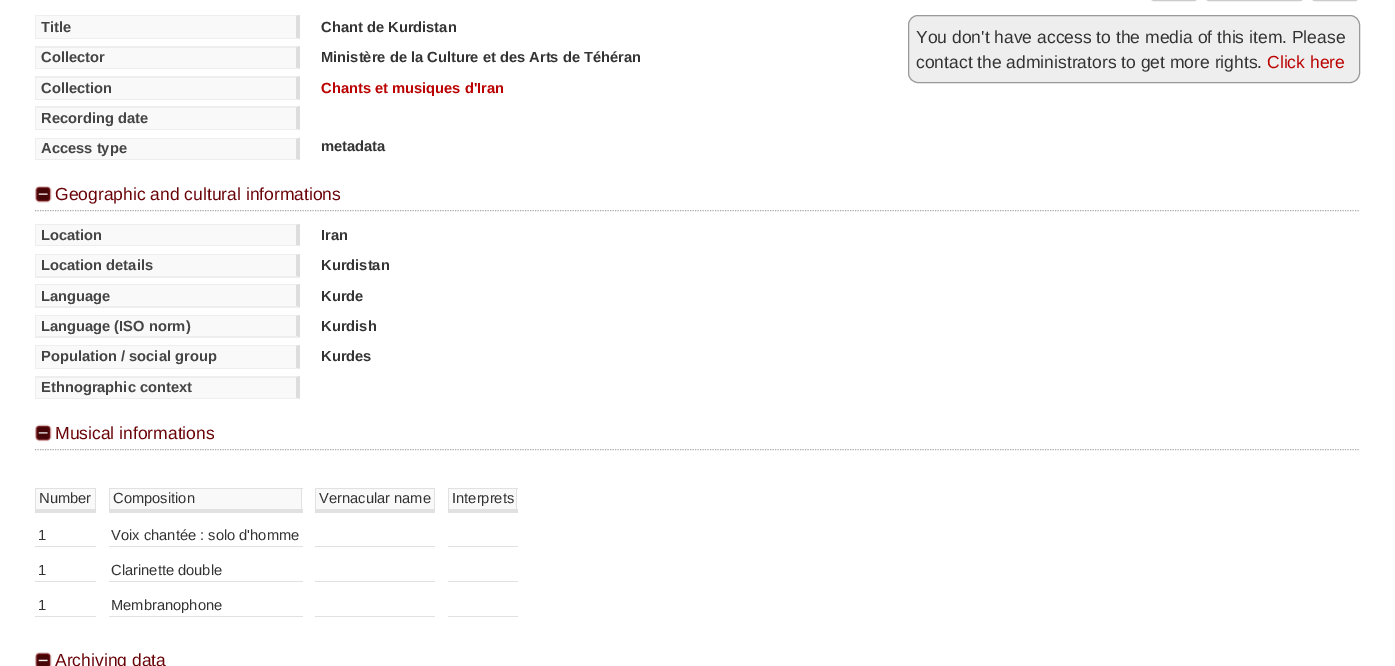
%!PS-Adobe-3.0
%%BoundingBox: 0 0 1395 666
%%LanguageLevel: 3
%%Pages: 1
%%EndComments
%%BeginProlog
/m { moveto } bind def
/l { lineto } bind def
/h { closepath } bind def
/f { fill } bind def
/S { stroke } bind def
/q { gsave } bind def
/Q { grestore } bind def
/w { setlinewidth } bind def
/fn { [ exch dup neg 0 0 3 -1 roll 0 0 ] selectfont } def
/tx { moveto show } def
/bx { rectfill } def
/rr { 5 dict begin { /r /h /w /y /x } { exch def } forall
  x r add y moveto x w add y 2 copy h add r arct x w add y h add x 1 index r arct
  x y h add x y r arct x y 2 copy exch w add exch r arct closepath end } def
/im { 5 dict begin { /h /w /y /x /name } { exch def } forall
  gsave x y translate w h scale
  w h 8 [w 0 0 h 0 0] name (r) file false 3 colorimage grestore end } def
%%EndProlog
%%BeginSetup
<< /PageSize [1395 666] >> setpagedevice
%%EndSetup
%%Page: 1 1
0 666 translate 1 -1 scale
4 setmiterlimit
1 setgray
0 0 1395 666 bx
0.8 setgray
1149.5 -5.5 49 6 4.5 rr S
1204.5 -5.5 100 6 4.5 rr S
1310.5 -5.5 49 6 4.5 rr S
0.976 setgray
36 16 260 22 bx
0.933 setgray
35 15 m 300 15 l 296 16 l 36 16 l h f
0.867 setgray
300 15 m 300 39 l 296 37.5 l 296 16 l h f
0.933 setgray
300 39 m 35 39 l 36 38 l 296 38 l h f
35 15 1 24 bx
/LiberationSans-Bold 14.7 fn
0.267 setgray
(Title) 41 32 tx
0.2 setgray
(Chant de Kurdistan) 321 32 tx
0.976 setgray
36 48 260 20 bx
0.933 setgray
35 46 m 300 46 l 296 48 l 36 48 l h f
0.867 setgray
300 46 m 300 69 l 296 67.5 l 296 47.5 l h f
0.933 setgray
300 69 m 35 69 l 36 68 l 296 68 l h f
35 46 1 23 bx
0.267 setgray
(Collector) 41 62 tx
0.2 setgray
(Ministère de la Culture et des Arts de Téhéran) 321 62 tx
0.976 setgray
36 78 260 21 bx
0.933 setgray
35 76 m 300 76 l 296 78 l 36 78 l h f
0.867 setgray
300 76 m 300 100 l 296 99 l 296 77.5 l h f
0.933 setgray
300 100 m 35 100 l 36 99 l 296 99 l h f
35 76 1 24 bx
0.267 setgray
(Collection) 41 93 tx
0.733 0 0 setrgbcolor
(Chants et musiques d'Iran) 321 93 tx
0.976 setgray
36 108 260 21 bx
0.933 setgray
35 106 m 300 106 l 296 108 l 36 108 l h f
0.867 setgray
300 106 m 300 130 l 296 129 l 296 107.5 l h f
0.933 setgray
300 130 m 35 130 l 36 129 l 296 129 l h f
35 106 1 24 bx
0.267 setgray
(Recording date) 41 123 tx
0.976 setgray
36 139 260 20 bx
0.933 setgray
35 138 m 300 138 l 296 139 l 36 139 l h f
0.867 setgray
300 137.5 m 300 160 l 296 159 l 296 139 l h f
0.933 setgray
300 160 m 35 160 l 36 159 l 296 159 l h f
35 138 1 22 bx
0.267 setgray
(Access type) 41 153 tx
0.2 setgray
(metadata) 321 151 tx
0.933 setgray
908.5 15.5 451 67 9.5 rr q f Q
0.6 setgray
S
/LiberationSans-Regular 17.5 fn
0.2 setgray
(You don't have access to the media of this item. Please) 916 43 tx
(contact the administrators to get more rights.) 916 68 tx
0.733 0 0 setrgbcolor
(Click here) 1267 68 tx
0.667 setgray
1.2 w
[1.25 1.25] 0 setdash
35 210.5 m 1360 210.5 l S
1 setgray
35 209 1324 1 bx
(image0.raw) 35 186 17 17 im
0.416 0.012 0.027 setrgbcolor
(Geographic and cultural informations) 55 200 tx
0.976 setgray
36 225 260 20 bx
0.933 setgray
35 224 m 300 224 l 296 225 l 36 225 l h f
0.867 setgray
300 224 m 300 246 l 296 245 l 296 225 l h f
0.933 setgray
300 246 m 35 246 l 36 245 l 296 245 l h f
35 224 1 22 bx
/LiberationSans-Bold 14.7 fn
0.267 setgray
(Location) 41 240 tx
0.2 setgray
(Iran) 321 240 tx
0.976 setgray
36 255 260 21 bx
0.933 setgray
35 254 m 300 254 l 296 255 l 36 255 l h f
0.867 setgray
300 254 m 300 277.5 l 296 276 l 296 255 l h f
0.933 setgray
300 278 m 35 278 l 36 276 l 296 276 l h f
35 254 1 24 bx
0.267 setgray
(Location details) 41 270 tx
0.2 setgray
(Kurdistan) 321 270 tx
0.976 setgray
36 285 260 21 bx
0.933 setgray
35 284 m 300 284 l 296 285 l 36 285 l h f
0.867 setgray
300 284 m 300 307.5 l 296 306 l 296 285 l h f
0.933 setgray
300 308 m 35 308 l 36 306 l 296 306 l h f
35 284 1 24 bx
0.267 setgray
(Language) 41 301 tx
0.2 setgray
(Kurde) 321 301 tx
0.976 setgray
36 316 260 20 bx
0.933 setgray
35 315 m 300 315 l 296 316 l 36 316 l h f
0.867 setgray
300 315 m 300 337.5 l 296 336 l 296 316 l h f
0.933 setgray
300 338 m 35 338 l 36 336 l 296 336 l h f
35 315 1 23 bx
0.267 setgray
(Language \(ISO norm\)) 41 331 tx
0.2 setgray
(Kurdish) 321 331 tx
0.976 setgray
36 346 260 22 bx
0.933 setgray
35 345 m 300 345 l 296 346 l 36 346 l h f
0.867 setgray
300 345 m 300 369 l 296 367.5 l 296 346 l h f
0.933 setgray
300 369 m 35 369 l 36 368 l 296 368 l h f
35 345 1 24 bx
0.267 setgray
(Population / social group) 41 361 tx
0.2 setgray
(Kurdes) 321 361 tx
0.976 setgray
36 378 260 20 bx
0.933 setgray
35 376 m 300 376 l 296 378 l 36 378 l h f
0.867 setgray
300 376 m 300 399 l 296 397.5 l 296 377.5 l h f
0.933 setgray
300 399 m 35 399 l 36 398 l 296 398 l h f
35 376 1 23 bx
0.267 setgray
(Ethnographic context) 41 392 tx
0.667 setgray
35 449.5 m 1360 449.5 l S
1 setgray
35 448 1324 1 bx
(image1.raw) 35 424 17 18 im
/LiberationSans-Regular 17.5 fn
0.416 0.012 0.027 setrgbcolor
(Musical informations) 55 439 tx
0.976 setgray
36 489 59 20 bx
0.882 setgray
35 488 61 1 bx
95 488 1 25 bx
35 509 61 4 bx
35 488 1 25 bx
/LiberationSans-Regular 14.7 fn
0.2 setgray
(Number) 39 503 tx
0.976 setgray
110 489 191 20 bx
0.882 setgray
109 488 194 1 bx
301 488 1 25 bx
109 509 194 4 bx
109 488 1 25 bx
0.2 setgray
(Composition) 113 503 tx
0.976 setgray
316 489 118 20 bx
0.882 setgray
315 488 120 1 bx
434 488 1 25 bx
315 509 120 4 bx
315 488 1 25 bx
0.2 setgray
(Vernacular name) 319 503 tx
0.976 setgray
449 489 67 20 bx
0.882 setgray
448 488 70 1 bx
516 488 1 25 bx
448 509 70 4 bx
448 488 1 25 bx
0.2 setgray
(Interprets) 452 503 tx
0.882 setgray
35 546 61 1 bx
0.2 setgray
(1) 38 540 tx
0.882 setgray
109 546 194 1 bx
0.2 setgray
(Voix chantée : solo d'homme) 111 540 tx
0.882 setgray
315 546 120 1 bx
448 546 70 1 bx
35 581 61 1 bx
0.2 setgray
(1) 38 575 tx
0.882 setgray
109 581 194 1 bx
0.2 setgray
(Clarinette double) 111 575 tx
0.882 setgray
315 581 120 1 bx
448 581 70 1 bx
35 616 61 1 bx
0.2 setgray
(1) 38 610 tx
0.882 setgray
109 616 194 1 bx
0.2 setgray
(Membranophone) 111 610 tx
0.882 setgray
315 616 120 1 bx
448 616 70 1 bx
(image2.raw) 35 652 17 14 im
/LiberationSans-Regular 17.5 fn
0.416 0.012 0.027 setrgbcolor
(Archiving data) 55 666 tx
showpage
%%EOF
